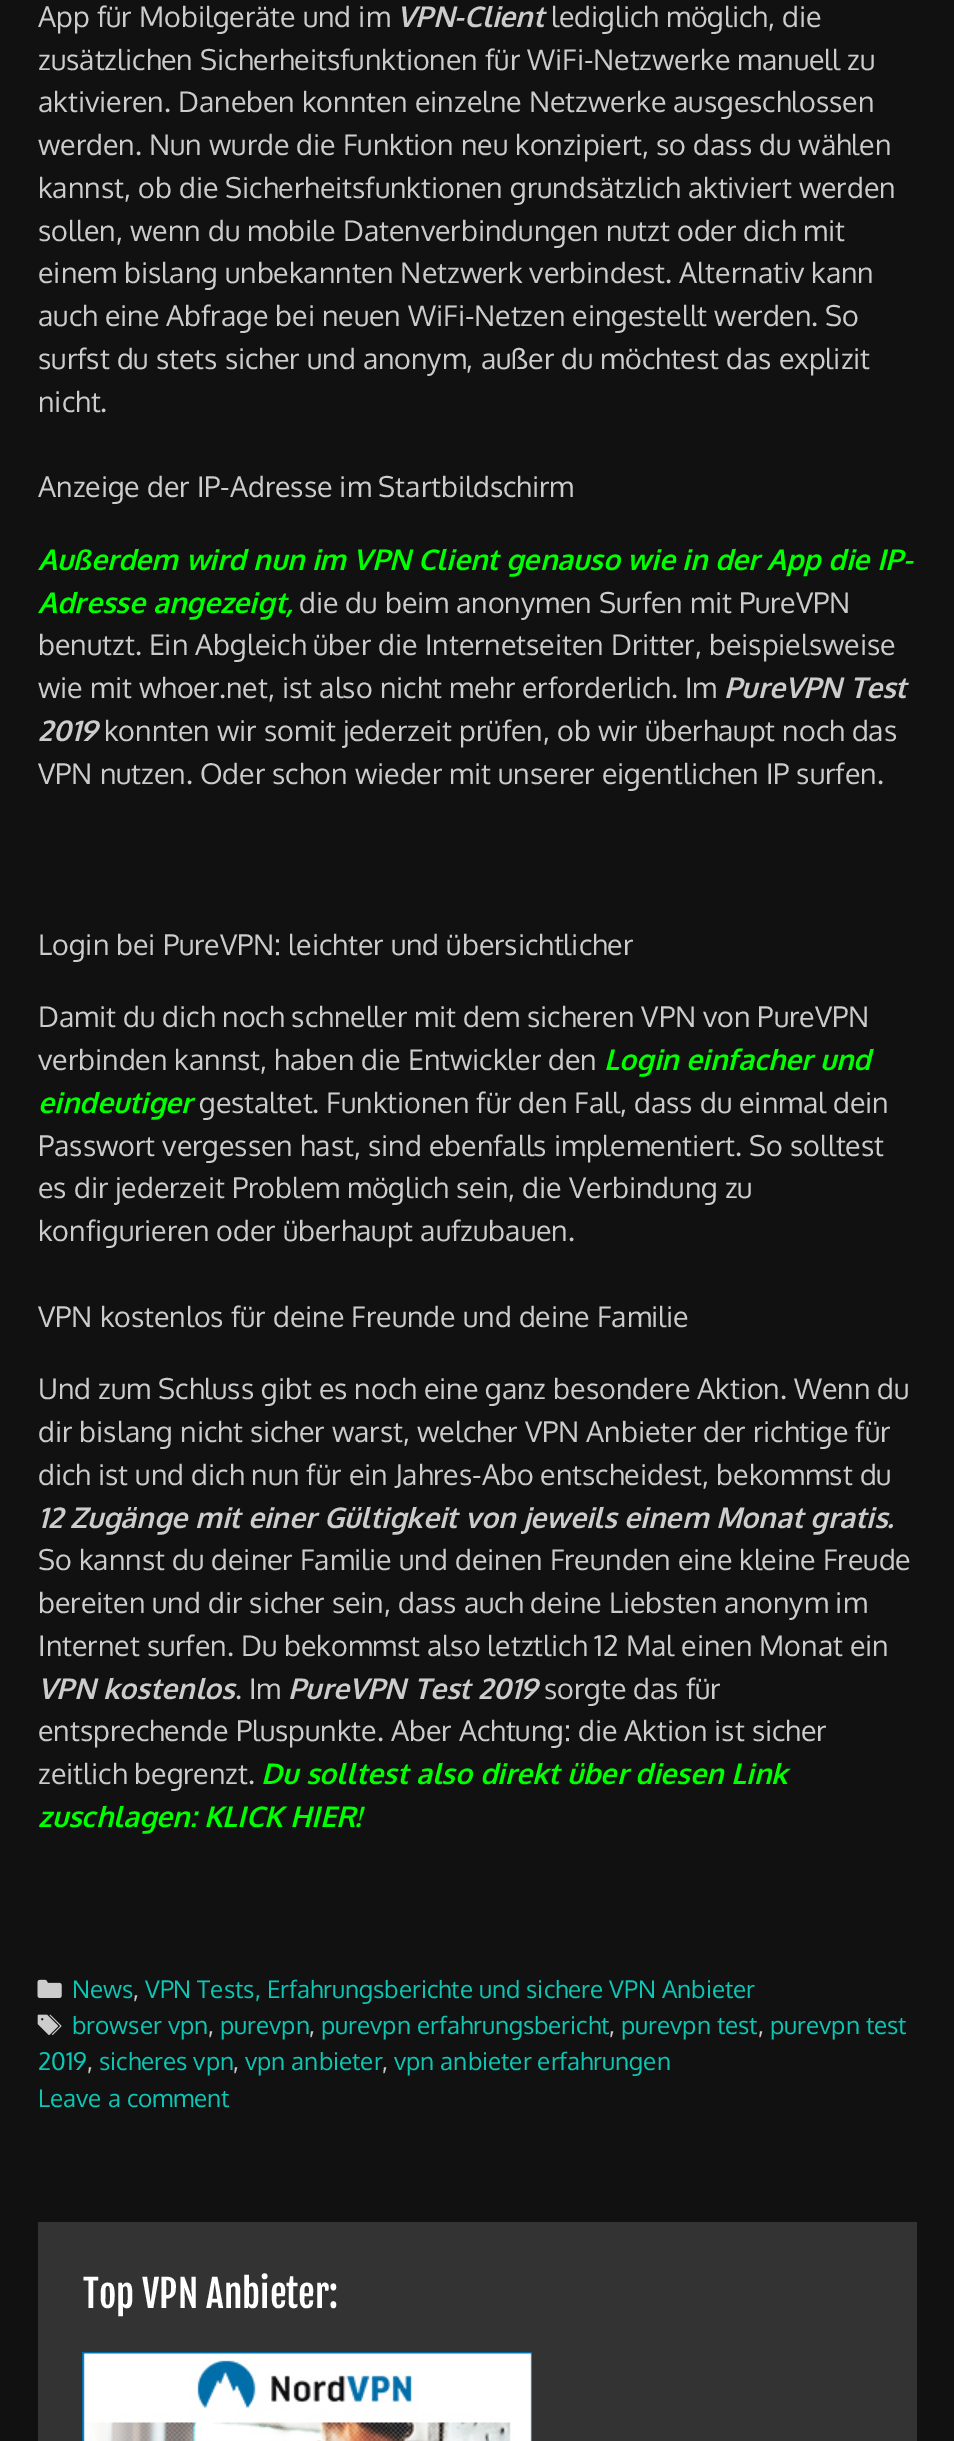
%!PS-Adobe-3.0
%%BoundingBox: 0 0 954 2441
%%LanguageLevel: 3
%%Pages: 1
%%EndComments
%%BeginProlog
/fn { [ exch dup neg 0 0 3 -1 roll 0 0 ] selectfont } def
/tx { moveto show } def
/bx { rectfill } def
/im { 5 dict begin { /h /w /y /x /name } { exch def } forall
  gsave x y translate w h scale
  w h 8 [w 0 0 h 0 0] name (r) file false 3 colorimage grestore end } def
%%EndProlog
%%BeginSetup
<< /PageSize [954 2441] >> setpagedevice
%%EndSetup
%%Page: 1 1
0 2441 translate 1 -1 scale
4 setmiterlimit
0.067 setgray
0 0 954 2441 bx
/Oxygen-Regular 28.5 fn
0.8 setgray
(App für Mobilgeräte und im) 38 27 tx
/Oxygen-BoldItalic 28.5 fn
(VPN-Client) 397 27 tx
/Oxygen-Regular 28.5 fn
(lediglich möglich, die) 551 27 tx
(zusätzlichen Sicherheitsfunktionen für WiFi-Netzwerke manuell zu) 38 70 tx
(aktivieren. Daneben konnten einzelne Netzwerke ausgeschlossen) 38 112 tx
(werden. Nun wurde die Funktion neu konzipiert, so dass du wählen) 38 155 tx
(kannst, ob die Sicherheitsfunktionen grundsätzlich aktiviert werden) 38 198 tx
(sollen, wenn du mobile Datenverbindungen nutzt oder dich mit) 38 241 tx
(einem bislang unbekannten Netzwerk verbindest. Alternativ kann) 38 283 tx
(auch eine Abfrage bei neuen WiFi-Netzen eingestellt werden. So) 38 326 tx
(surfst du stets sicher und anonym, außer du möchtest das explizit) 38 369 tx
(nicht.) 38 412 tx
(Anzeige der IP-Adresse im Startbildschirm) 38 497 tx
/Oxygen-BoldItalic 28.5 fn
0 1 0 setrgbcolor
(Außerdem wird nun im VPN Client genauso wie in der App die IP-) 38 570 tx
(Adresse angezeigt,) 38 613 tx
/Oxygen-Regular 28.5 fn
0.8 setgray
(die du beim anonymen Surfen mit PureVPN) 299 613 tx
(benutzt. Ein Abgleich über die Internetseiten Dritter, beispielsweise) 38 655 tx
(wie mit whoer.net, ist also nicht mehr erforderlich. Im) 38 698 tx
/Oxygen-BoldItalic 28.5 fn
(PureVPN Test) 724 698 tx
(2019) 38 741 tx
/Oxygen-Regular 28.5 fn
(konnten wir somit jederzeit prüfen, ob wir überhaupt noch das) 104 741 tx
(VPN nutzen. Oder schon wieder mit unserer eigentlichen IP surfen.) 38 784 tx
(Login bei PureVPN: leichter und übersichtlicher) 38 955 tx
(Damit du dich noch schneller mit dem sicheren VPN von PureVPN) 38 1027 tx
(verbinden kannst, haben die Entwickler den) 38 1070 tx
/Oxygen-BoldItalic 28.5 fn
0 1 0 setrgbcolor
(Login einfacher und) 604 1070 tx
(eindeutiger) 38 1113 tx
/Oxygen-Regular 28.5 fn
0.8 setgray
(gestaltet. Funktionen für den Fall, dass du einmal dein) 199 1113 tx
(Passwort vergessen hast, sind ebenfalls implementiert. So solltest) 38 1156 tx
(es dir jederzeit Problem möglich sein, die Verbindung zu) 38 1198 tx
(konfigurieren oder überhaupt aufzubauen.) 38 1241 tx
(VPN kostenlos für deine Freunde und deine Familie) 38 1327 tx
(Und zum Schluss gibt es noch eine ganz besondere Aktion. Wenn du) 38 1399 tx
(dir bislang nicht sicher warst, welcher VPN Anbieter der richtige für) 38 1442 tx
(dich ist und dich nun für ein Jahres-Abo entscheidest, bekommst du) 38 1485 tx
/Oxygen-BoldItalic 28.5 fn
(12 Zugänge mit einer Gültigkeit von jeweils einem Monat gratis.) 38 1528 tx
/Oxygen-Regular 28.5 fn
(So kannst du deiner Familie und deinen Freunden eine kleine Freude) 38 1570 tx
(bereiten und dir sicher sein, dass auch deine Liebsten anonym im) 38 1613 tx
(Internet surfen. Du bekommst also letztlich 12 Mal einen Monat ein) 38 1656 tx
/Oxygen-BoldItalic 28.5 fn
(VPN kostenlos) 38 1699 tx
/Oxygen-Regular 28.5 fn
(. Im) 235 1699 tx
/Oxygen-BoldItalic 28.5 fn
(PureVPN Test 2019) 288 1699 tx
/Oxygen-Regular 28.5 fn
(sorgte das für) 544 1699 tx
(entsprechende Pluspunkte. Aber Achtung: die Aktion ist sicher) 38 1741 tx
(zeitlich begrenzt.) 38 1784 tx
/Oxygen-BoldItalic 28.5 fn
0 1 0 setrgbcolor
(Du solltest also direkt über diesen Link) 261 1784 tx
(zuschlagen: KLICK HIER!) 38 1827 tx
(image0.raw) 37 1979 25 19 im
/Oxygen-Regular 24.25 fn
0.051 0.776 0.706 setrgbcolor
(News) 72 1998 tx
0.8 setgray
(,) 133 1998 tx
0.051 0.776 0.706 setrgbcolor
(VPN Tests, Erfahrungsberichte und sichere VPN Anbieter) 145 1998 tx
(image1.raw) 37 2014 25 22 im
(browser vpn) 72 2034 tx
0.8 setgray
(,) 208 2034 tx
0.051 0.776 0.706 setrgbcolor
(purevpn) 220 2034 tx
0.8 setgray
(,) 309 2034 tx
0.051 0.776 0.706 setrgbcolor
(purevpn erfahrungsbericht) 321 2034 tx
0.8 setgray
(,) 609 2034 tx
0.051 0.776 0.706 setrgbcolor
(purevpn test) 621 2034 tx
0.8 setgray
(,) 758 2034 tx
0.051 0.776 0.706 setrgbcolor
(purevpn test) 770 2034 tx
(2019) 38 2070 tx
0.8 setgray
(,) 87 2070 tx
0.051 0.776 0.706 setrgbcolor
(sicheres vpn) 99 2070 tx
0.8 setgray
(,) 233 2070 tx
0.051 0.776 0.706 setrgbcolor
(vpn anbieter) 245 2070 tx
0.8 setgray
(,) 382 2070 tx
0.051 0.776 0.706 setrgbcolor
(vpn anbieter erfahrungen) 394 2070 tx
(Leave a comment) 38 2107 tx
0.2 setgray
38 2222 879 219 bx
/FjallaOne-Regular 37.5 fn
1 setgray
(Top VPN Anbieter:) 83 2308 tx
(image2.raw) 82 2352 450 89 im
showpage
%%EOF
